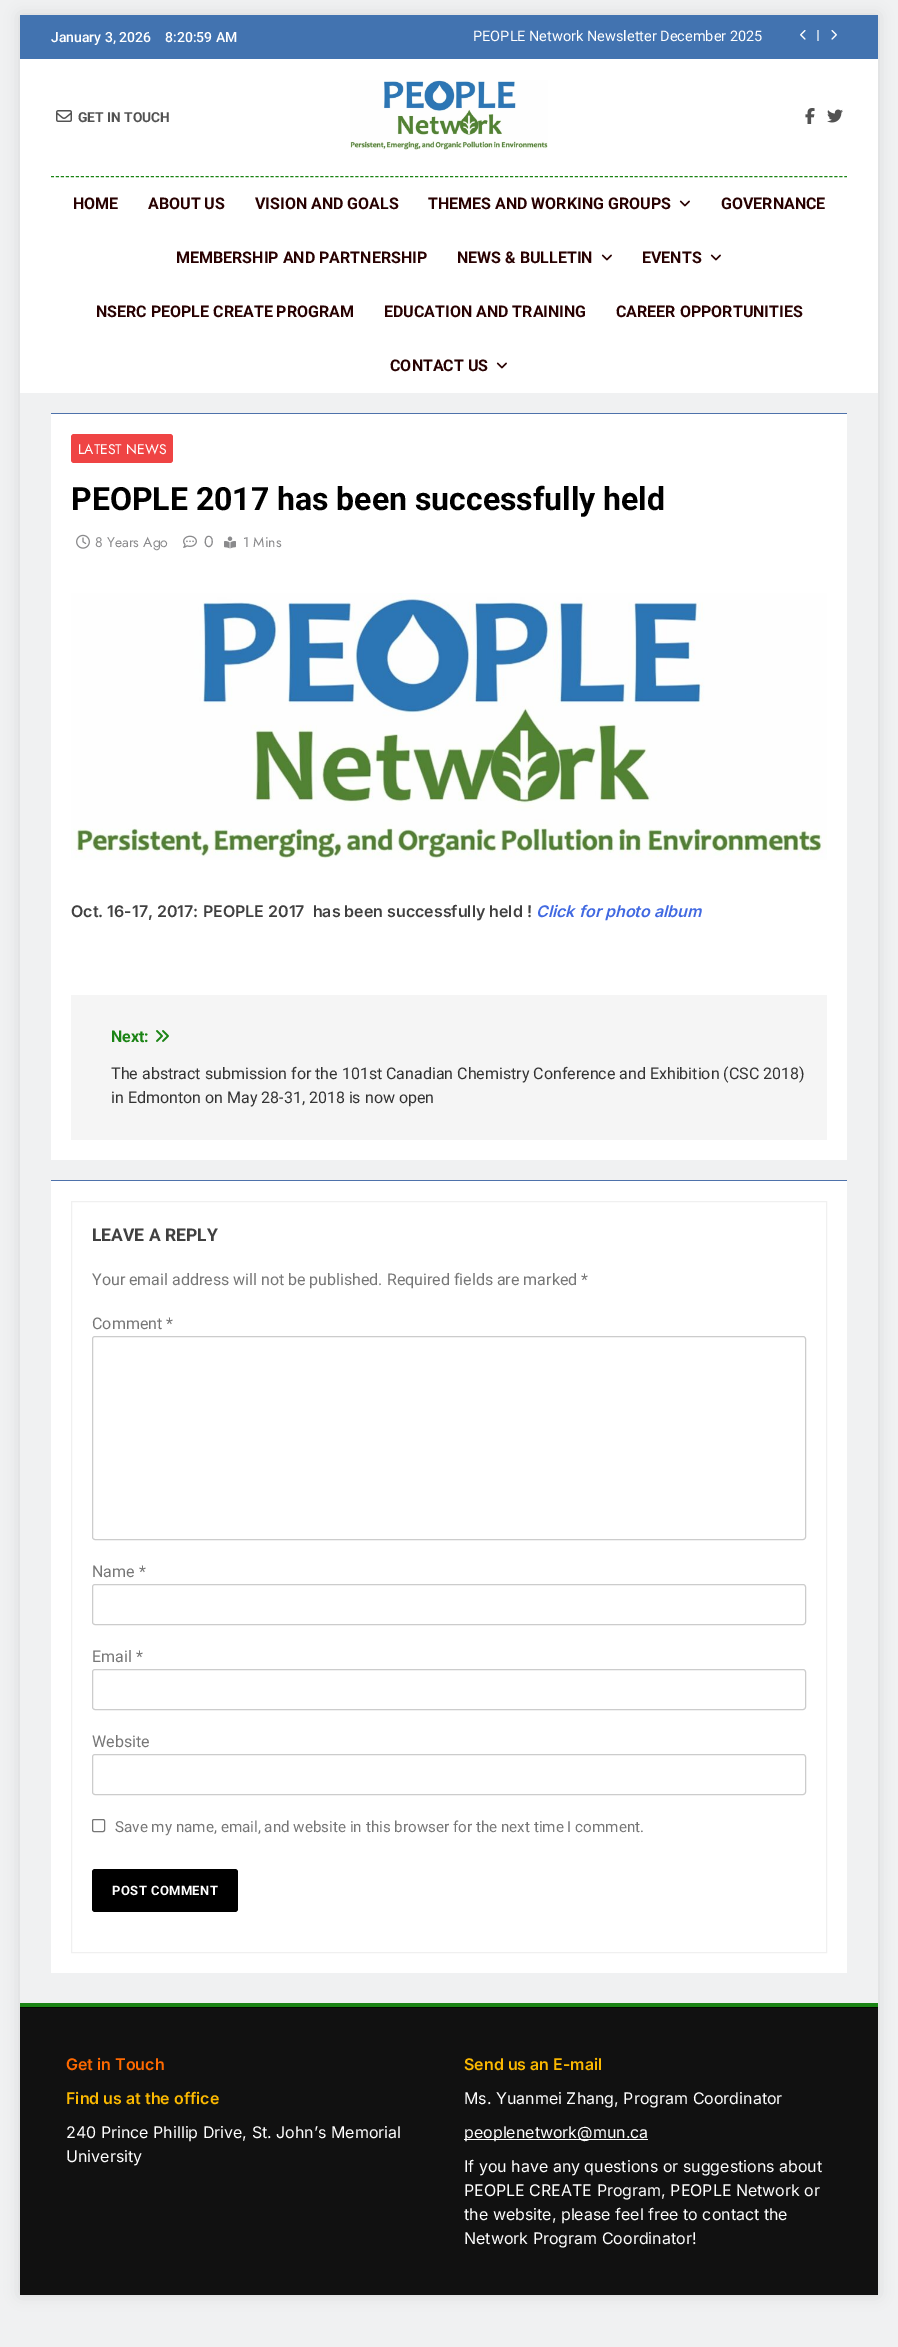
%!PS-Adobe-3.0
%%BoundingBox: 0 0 898 2347
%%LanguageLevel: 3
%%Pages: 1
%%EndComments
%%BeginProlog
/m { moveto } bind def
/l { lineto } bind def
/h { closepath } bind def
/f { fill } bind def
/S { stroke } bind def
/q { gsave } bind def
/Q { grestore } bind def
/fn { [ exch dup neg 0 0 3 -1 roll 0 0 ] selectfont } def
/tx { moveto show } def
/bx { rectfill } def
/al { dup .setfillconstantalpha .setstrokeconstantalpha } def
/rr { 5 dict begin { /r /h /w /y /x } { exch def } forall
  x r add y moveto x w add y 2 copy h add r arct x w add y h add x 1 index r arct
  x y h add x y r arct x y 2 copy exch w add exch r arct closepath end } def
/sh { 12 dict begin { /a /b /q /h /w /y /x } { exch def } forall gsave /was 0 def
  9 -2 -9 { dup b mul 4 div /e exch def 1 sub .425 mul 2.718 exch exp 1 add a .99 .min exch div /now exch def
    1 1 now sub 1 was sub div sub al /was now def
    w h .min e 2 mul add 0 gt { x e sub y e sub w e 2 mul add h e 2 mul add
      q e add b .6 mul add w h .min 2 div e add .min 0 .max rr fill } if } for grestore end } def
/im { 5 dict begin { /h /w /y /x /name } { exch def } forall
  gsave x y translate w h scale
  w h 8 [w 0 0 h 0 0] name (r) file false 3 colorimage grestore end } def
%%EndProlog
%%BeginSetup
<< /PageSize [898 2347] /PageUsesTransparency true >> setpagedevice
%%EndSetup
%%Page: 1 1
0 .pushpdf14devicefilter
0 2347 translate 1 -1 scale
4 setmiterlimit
0.941 0.945 0.949 setrgbcolor
0 0 898 2347 bx
0.067 setgray
20 2008 858 287 bx
q
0 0 m 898 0 l 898 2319 l 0 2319 l h 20 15 m 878 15 l 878 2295 l 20 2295 l h eoclip newpath
0 setgray
20 15 858 2280 0 7.5 0.1 sh
Q
0.259 0.451 0.69 setrgbcolor
20 15 858 44 bx
/Roboto-Medium 14 fn
1 setgray
(January 3, 2026) 51 42 tx
(8:20:59 AM) 165 42 tx
/Roboto-Regular 14.5 fn
(PEOPLE Network Newsletter December 2025) 473 41 tx
(image0.raw) 800 30 6 10 im
0.702 0.78 0.875 setrgbcolor
817 30 2 11 bx
(image1.raw) 831 30 6 10 im
1 setgray
20 59 858 334 bx
(image2.raw) 56 110 16 12 im
/Roboto-Bold 13.75 fn
0.322 setgray
(GET IN TOUCH) 78 122 tx
(image3.raw) 350 80 198 70 im
(image4.raw) 805 108 10 16 im
(image5.raw) 827 109 16 14 im
0.106 0.518 0.082 setrgbcolor
[3 1.99] 0 setdash
51 176.5 m 847 176.5 l S
/Roboto-Bold 16 fn
0.157 0.004 0.004 setrgbcolor
(HOME) 73 209 tx
(ABOUT US) 148 209 tx
(VISION AND GOALS) 255 209 tx
(THEMES AND WORKING GROUPS) 428 209 tx
(image6.raw) 679 200 11 7 im
(GOVERNANCE) 721 209 tx
(MEMBERSHIP AND PARTNERSHIP) 176 263 tx
(NEWS & BULLETIN) 457 263 tx
(image6.raw) 601 254 11 7 im
(EVENTS) 642 263 tx
(image6.raw) 710 254 11 7 im
(NSERC PEOPLE CREATE PROGRAM) 96 317 tx
(EDUCATION AND TRAINING) 384 317 tx
(CAREER OPPORTUNITIES) 616 317 tx
(CONTACT US) 390 371 tx
(image6.raw) 496 362 11 7 im
1 setgray
51 414 796 746 bx
0.306 0.447 0.671 setrgbcolor
51 413 796 1 bx
0.937 0.267 0.267 setrgbcolor
71 434 102 29 3 rr f
/Jost-Regular 14 fn
1 setgray
(LATEST NEWS) 78 454 tx
/Roboto-Bold 32 fn
0 setgray
(PEOPLE 2017 has been successfully held) 71 510 tx
(image7.raw) 76 534 14 15 im
/Jost-Regular 14 fn
0.541 0.541 0.549 setrgbcolor
(8 Years Ago) 95 547 tx
(image8.raw) 183 535 14 13 im
/Jost-Regular 16 fn
(0) 204 547 tx
(image9.raw) 224 536 12 13 im
/Jost-Regular 14 fn
(1 Mins) 243 547 tx
(image10.raw) 71 593 756 267 im
/Inter-SemiBold 16 fn
0.251 setgray
(Oct. 16-17, 2017: PEOPLE 2017  has been successfully held !) 71 917 tx
/Inter-SemiBoldItalic 16 fn
0.255 0.412 0.882 setrgbcolor
(Click for photo album) 536 917 tx
0.961 setgray
71 995 756 145 bx
/Roboto-Bold 16 fn
0.106 0.518 0.082 setrgbcolor
(Next:) 111 1042 tx
(image11.raw) 156 1030 13 12 im
/Roboto-Regular 16 fn
0.2 setgray
(The abstract submission for the 101st Canadian Chemistry Conference and Exhibition \(CSC 2018\)) 111 1079 tx
(in Edmonton on May 28-31, 2018 is now open) 111 1103 tx
1 setgray
51 1181 796 792 bx
0.306 0.447 0.671 setrgbcolor
51 1180 796 1 bx
0.941 setgray
[] 0 setdash
71.5 1201.5 755 751 rectstroke
/Roboto-Bold 17.5 fn
0.251 setgray
(LEAVE A REPLY) 92 1241 tx
/Roboto-Regular 16 fn
0.467 setgray
(Your email address will not be published. Required fields are marked *) 92 1285 tx
(Comment *) 92 1329 tx
0.8 setgray
92.5 1336.5 713 203 2.5 rr S
0.467 setgray
(Name *) 92 1577 tx
0.8 setgray
92.5 1584.5 713 40 2.5 rr S
0.467 setgray
(Email *) 92 1662 tx
0.8 setgray
92.5 1669.5 713 40 2.5 rr S
0.467 setgray
(Website) 92 1747 tx
0.8 setgray
92.5 1754.5 713 40 2.5 rr S
0.463 setgray
92.5 1819.5 12 12 1.5 rr S
/Roboto-Regular 15.2 fn
0.467 setgray
(Save my name, email, and website in this browser for the next time I comment.) 115 1832 tx
0 setgray
92 1869 146 43 3 rr f
/Roboto-Bold 13 fn
1 setgray
112 1895 m 0.4 0 (POST COMMENT) ashow
0.106 0.518 0.082 setrgbcolor
20 2003 858 4 bx
0.008 0.035 0.004 setrgbcolor
20 2007 858 1 bx
/Inter-SemiBold 16 fn
1 0.412 0 setrgbcolor
(Get in Touch) 66 2070 tx
0.988 0.725 0 setrgbcolor
(Find us at the office) 66 2104 tx
/Inter-Regular 16 fn
1 setgray
(240 Prince Phillip Drive, St. John’s Memorial) 66 2138 tx
(University) 66 2162 tx
/Inter-SemiBold 16 fn
0.988 0.725 0 setrgbcolor
(Send us an E-mail) 464 2070 tx
/Inter-Regular 16 fn
1 setgray
(Ms. Yuanmei Zhang, Program Coordinator) 464 2104 tx
464 2139 184 1 bx
(peoplenetwork@mun.ca) 464 2138 tx
(If you have any questions or suggestions about) 464 2172 tx
(PEOPLE CREATE Program, PEOPLE Network or) 464 2196 tx
(the website, please feel free to contact the) 464 2220 tx
(Network Program Coordinator!) 464 2244 tx
.poppdf14devicefilter showpage
%%EOF
